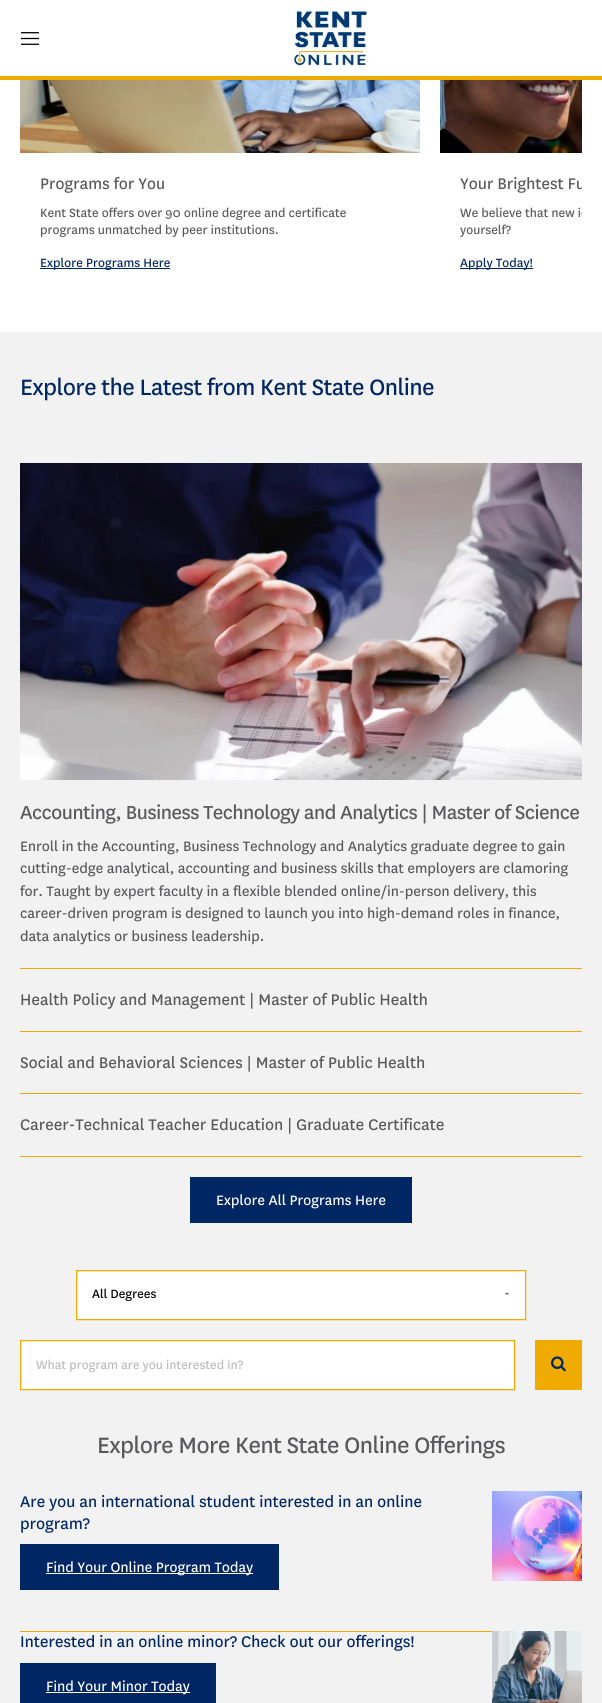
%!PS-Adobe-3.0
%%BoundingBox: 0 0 602 1703
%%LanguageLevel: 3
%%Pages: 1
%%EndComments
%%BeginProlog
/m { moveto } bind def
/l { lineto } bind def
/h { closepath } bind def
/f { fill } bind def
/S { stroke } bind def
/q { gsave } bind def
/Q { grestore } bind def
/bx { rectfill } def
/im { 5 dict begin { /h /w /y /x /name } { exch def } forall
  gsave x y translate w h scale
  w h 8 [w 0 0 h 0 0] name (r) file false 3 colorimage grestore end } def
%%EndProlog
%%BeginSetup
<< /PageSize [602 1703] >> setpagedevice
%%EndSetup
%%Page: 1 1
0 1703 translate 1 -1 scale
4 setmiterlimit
1 setgray
0 0 602 1703 bx
0.937 0.671 0 setrgbcolor
0 76 602 4 bx
(image0.raw) 21 32 18 13 im
(image1.raw) 292 10 77 56 im
(image2.raw) 20 80 400 73 im
(image3.raw) 41 176 123 17 im
(image4.raw) 41 207 305 13 im
(image5.raw) 41 224 237 13 im
0 0.149 0.392 setrgbcolor
40 268 130 1 bx
(image6.raw) 41 257 129 13 im
(image7.raw) 440 80 142 73 im
(image8.raw) 460 177 122 16 im
(image9.raw) 460 207 122 11 im
(image10.raw) 460 224 51 13 im
460 268 73 1 bx
(image11.raw) 460 257 72 13 im
0.949 setgray
0 332 602 891 bx
(image12.raw) 22 377 412 24 im
0.937 0.671 0 setrgbcolor
20 968 562 1 bx
(image13.raw) 20 463 562 317 im
(image14.raw) 20 804 559 20 im
(image15.raw) 21 840 544 15 im
(image16.raw) 20 862 548 15 im
(image17.raw) 20 885 517 15 im
(image18.raw) 20 907 539 15 im
(image19.raw) 20 930 244 15 im
20 1031 562 1 bx
(image20.raw) 21 992 406 17 im
20 1093 562 1 bx
(image21.raw) 20 1055 405 17 im
20 1156 562 1 bx
(image22.raw) 20 1117 424 17 im
0 0.149 0.392 setrgbcolor
190 1177 222 46 bx
(image23.raw) 217 1194 169 15 im
0.949 setgray
0 1223 602 480 bx
(image24.raw) 99 1435 406 24 im
(image25.raw) 20 1495 402 16 im
(image26.raw) 21 1518 69 15 im
0 0.149 0.392 setrgbcolor
20 1544 259 46 bx
1 setgray
46 1573 207 1 bx
(image27.raw) 47 1561 206 15 im
(image28.raw) 492 1491 90 90 im
0.937 0.671 0 setrgbcolor
20 1631 472 1 bx
(image29.raw) 21 1634 393 17 im
0 0.149 0.392 setrgbcolor
20 1663 196 40 bx
1 setgray
46 1692 144 1 bx
(image30.raw) 47 1680 143 15 im
(image31.raw) 492 1631 90 72 im
76.5 1270.5 m 525.5 1270.5 l 525.5 1319.5 l 76.5 1319.5 l h q f Q
0.937 0.671 0 setrgbcolor
S
(image32.raw) 92 1288 64 13 im
(image33.raw) 505 1293 4 2 im
1 setgray
20.5 1340.5 m 514.5 1340.5 l 514.5 1389.5 l 20.5 1389.5 l h q f Q
0.937 0.671 0 setrgbcolor
S
(image34.raw) 36 1359 207 13 im
535 1340 47 50 bx
(image35.raw) 551 1356 15 16 im
showpage
%%EOF
